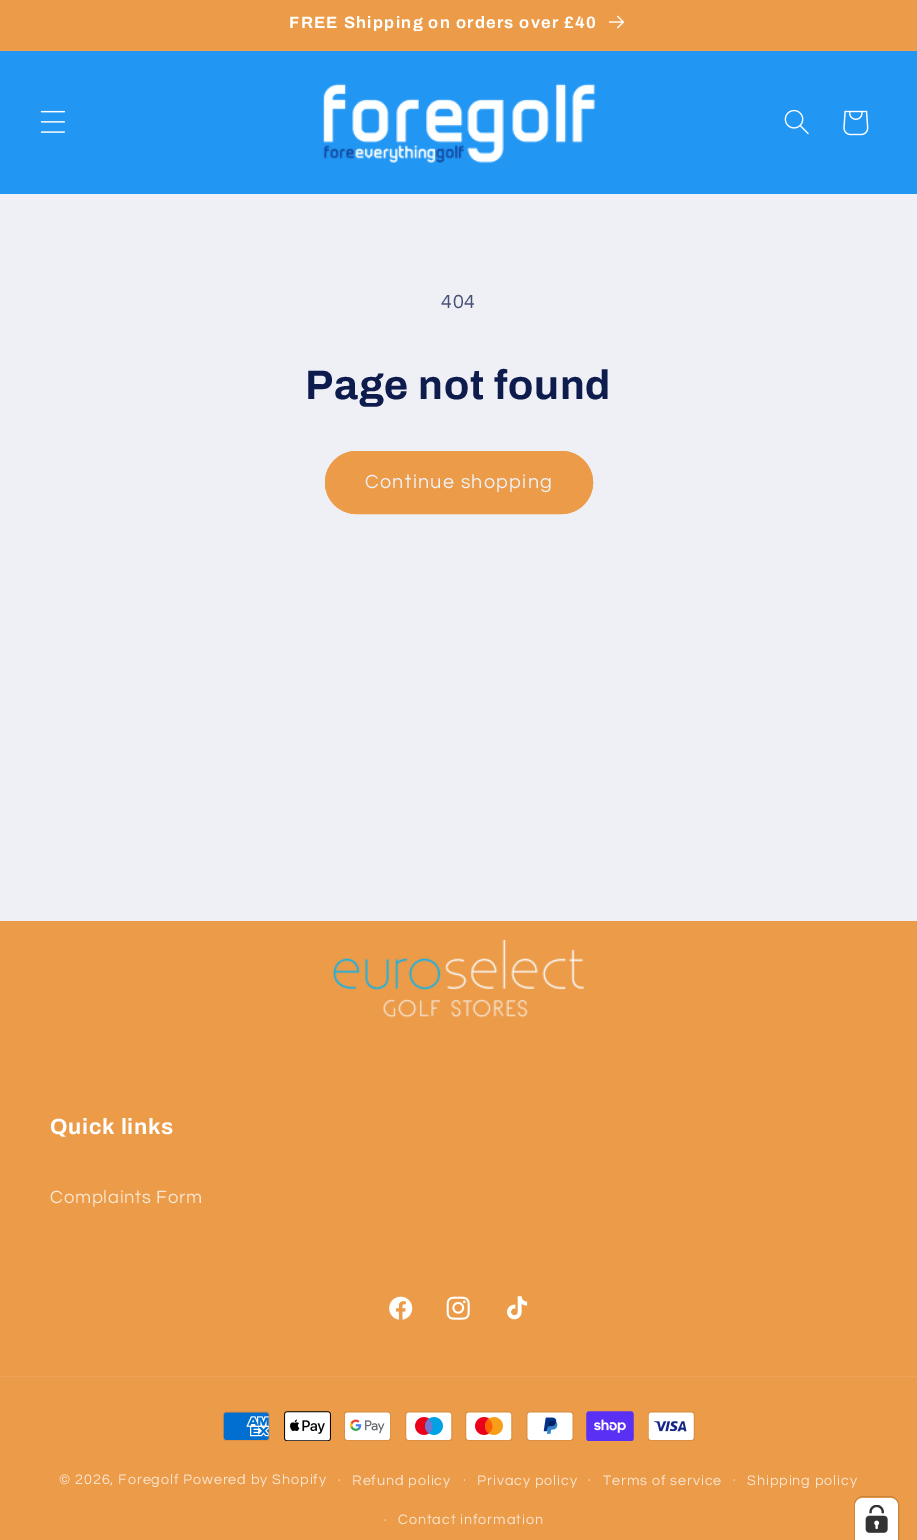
%!PS-Adobe-3.0
%%BoundingBox: 0 0 917 1540
%%LanguageLevel: 3
%%Pages: 1
%%EndComments
%%BeginProlog
/m { moveto } bind def
/l { lineto } bind def
/c { curveto } bind def
/h { closepath } bind def
/f { fill } bind def
/S { stroke } bind def
/fn { [ exch dup neg 0 0 3 -1 roll 0 0 ] selectfont } def
/bx { rectfill } def
/rr { 5 dict begin { /r /h /w /y /x } { exch def } forall
  x r add y moveto x w add y 2 copy h add r arct x w add y h add x 1 index r arct
  x y h add x y r arct x y 2 copy exch w add exch r arct closepath end } def
/im { 5 dict begin { /h /w /y /x /name } { exch def } forall
  gsave x y translate w h scale
  w h 8 [w 0 0 h 0 0] name (r) file false 3 colorimage grestore end } def
%%EndProlog
%%BeginSetup
<< /PageSize [917 1540] >> setpagedevice
%%EndSetup
%%Page: 1 1
0 1540 translate 1 -1 scale
4 setmiterlimit
0.937 0.941 0.961 setrgbcolor
0 0 917 1540 bx
0.925 0.608 0.282 setrgbcolor
0 0 917 50 bx
0.933 0.639 0.341 setrgbcolor
0 50 917 1 bx
/Archivo-Bold 16.5 fn
1 setgray
289 28 m 1.3 0 (FREE Shipping on orders over £40) ashow
(image0.raw) 609 15 15 14 im
0.129 0.588 0.953 setrgbcolor
0 51 917 143 bx
(image1.raw) 40 110 26 23 im
(image2.raw) 323 83 273 80 im
(image3.raw) 784 109 25 26 im
(image4.raw) 843 110 26 26 im
/Questrial-Regular 19.75 fn
0.275 0.314 0.467 setrgbcolor
441 308 m 0.75 0 (404) ashow
/Archivo-Bold 41.25 fn
0.055 0.106 0.302 setrgbcolor
305 399 m 0.8 0 (Page not found) ashow
0.925 0.608 0.282 setrgbcolor
325 451 268 63 31.5 rr f
325.5 451.5 267 62 31 rr S
/Questrial-Regular 19.75 fn
0.937 0.941 0.961 setrgbcolor
365 488 m 1.3 0 (Continue shopping) ashow
0.925 0.608 0.282 setrgbcolor
0 921 917 619 bx
(image5.raw) 333 940 251 78 im
/Archivo-Bold 22 fn
1 setgray
50 1134 m 0.8 0 (Quick links) ashow
/Questrial-Regular 18.5 fn
0.98 0.902 0.82 setrgbcolor
50 1203 m 0.75 0 (Complaints Form) ashow
(image6.raw) 389 1296 24 24 im
(image7.raw) 446 1296 24 24 im
(image8.raw) 507 1296 21 24 im
0.933 0.639 0.341 setrgbcolor
0 1376 917 1 bx
(image9.raw) 223 1411 47 30 im
(image10.raw) 284 1411 47 30 im
(image11.raw) 344 1411 47 30 im
(image12.raw) 405 1411 48 30 im
(image13.raw) 465 1411 48 30 im
(image14.raw) 526 1411 48 30 im
(image15.raw) 586 1411 48 30 im
(image16.raw) 648 1411 47 30 im
/Questrial-Regular 14.4 fn
0.98 0.902 0.82 setrgbcolor
59 1484 m 0.9 0 (© 2026, Foregolf Powered by Shopify) ashow
/Questrial-Regular 13 fn
338 1484 m 0.9 0 (·) ashow
/Questrial-Regular 14.4 fn
352 1485 m 0.9 0 (Refund policy) ashow
/Questrial-Regular 13 fn
463 1484 m 0.9 0 (·) ashow
/Questrial-Regular 14.4 fn
477 1485 m 0.9 0 (Privacy policy) ashow
/Questrial-Regular 13 fn
588 1484 m 0.9 0 (·) ashow
/Questrial-Regular 14.4 fn
603 1485 m 0.9 0 (Terms of service) ashow
/Questrial-Regular 13 fn
733 1484 m 0.9 0 (·) ashow
/Questrial-Regular 14.4 fn
747 1485 m 0.9 0 (Shipping policy) ashow
/Questrial-Regular 13 fn
384 1524 m 0.9 0 (·) ashow
/Questrial-Regular 14.4 fn
398 1524 m 0.9 0 (Contact information) ashow
0.788 0.518 0.239 setrgbcolor
863 1496.5 m 890 1496.5 l 894.5 1496.5 898.5 1500.5 898.5 1505 c 898.5 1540.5 l 854.5 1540.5 l 854.5 1505 l 854.5 1500.5 858.5 1496.5 863 1496.5 c h S
1 setgray
863 1498 m 890 1498 l 894.5 1498 898 1501.5 898 1506 c 898 1540 l 855 1540 l 855 1506 l 855 1501.5 858.5 1498 863 1498 c h f
(image17.raw) 865 1505 23 28 im
showpage
%%EOF
